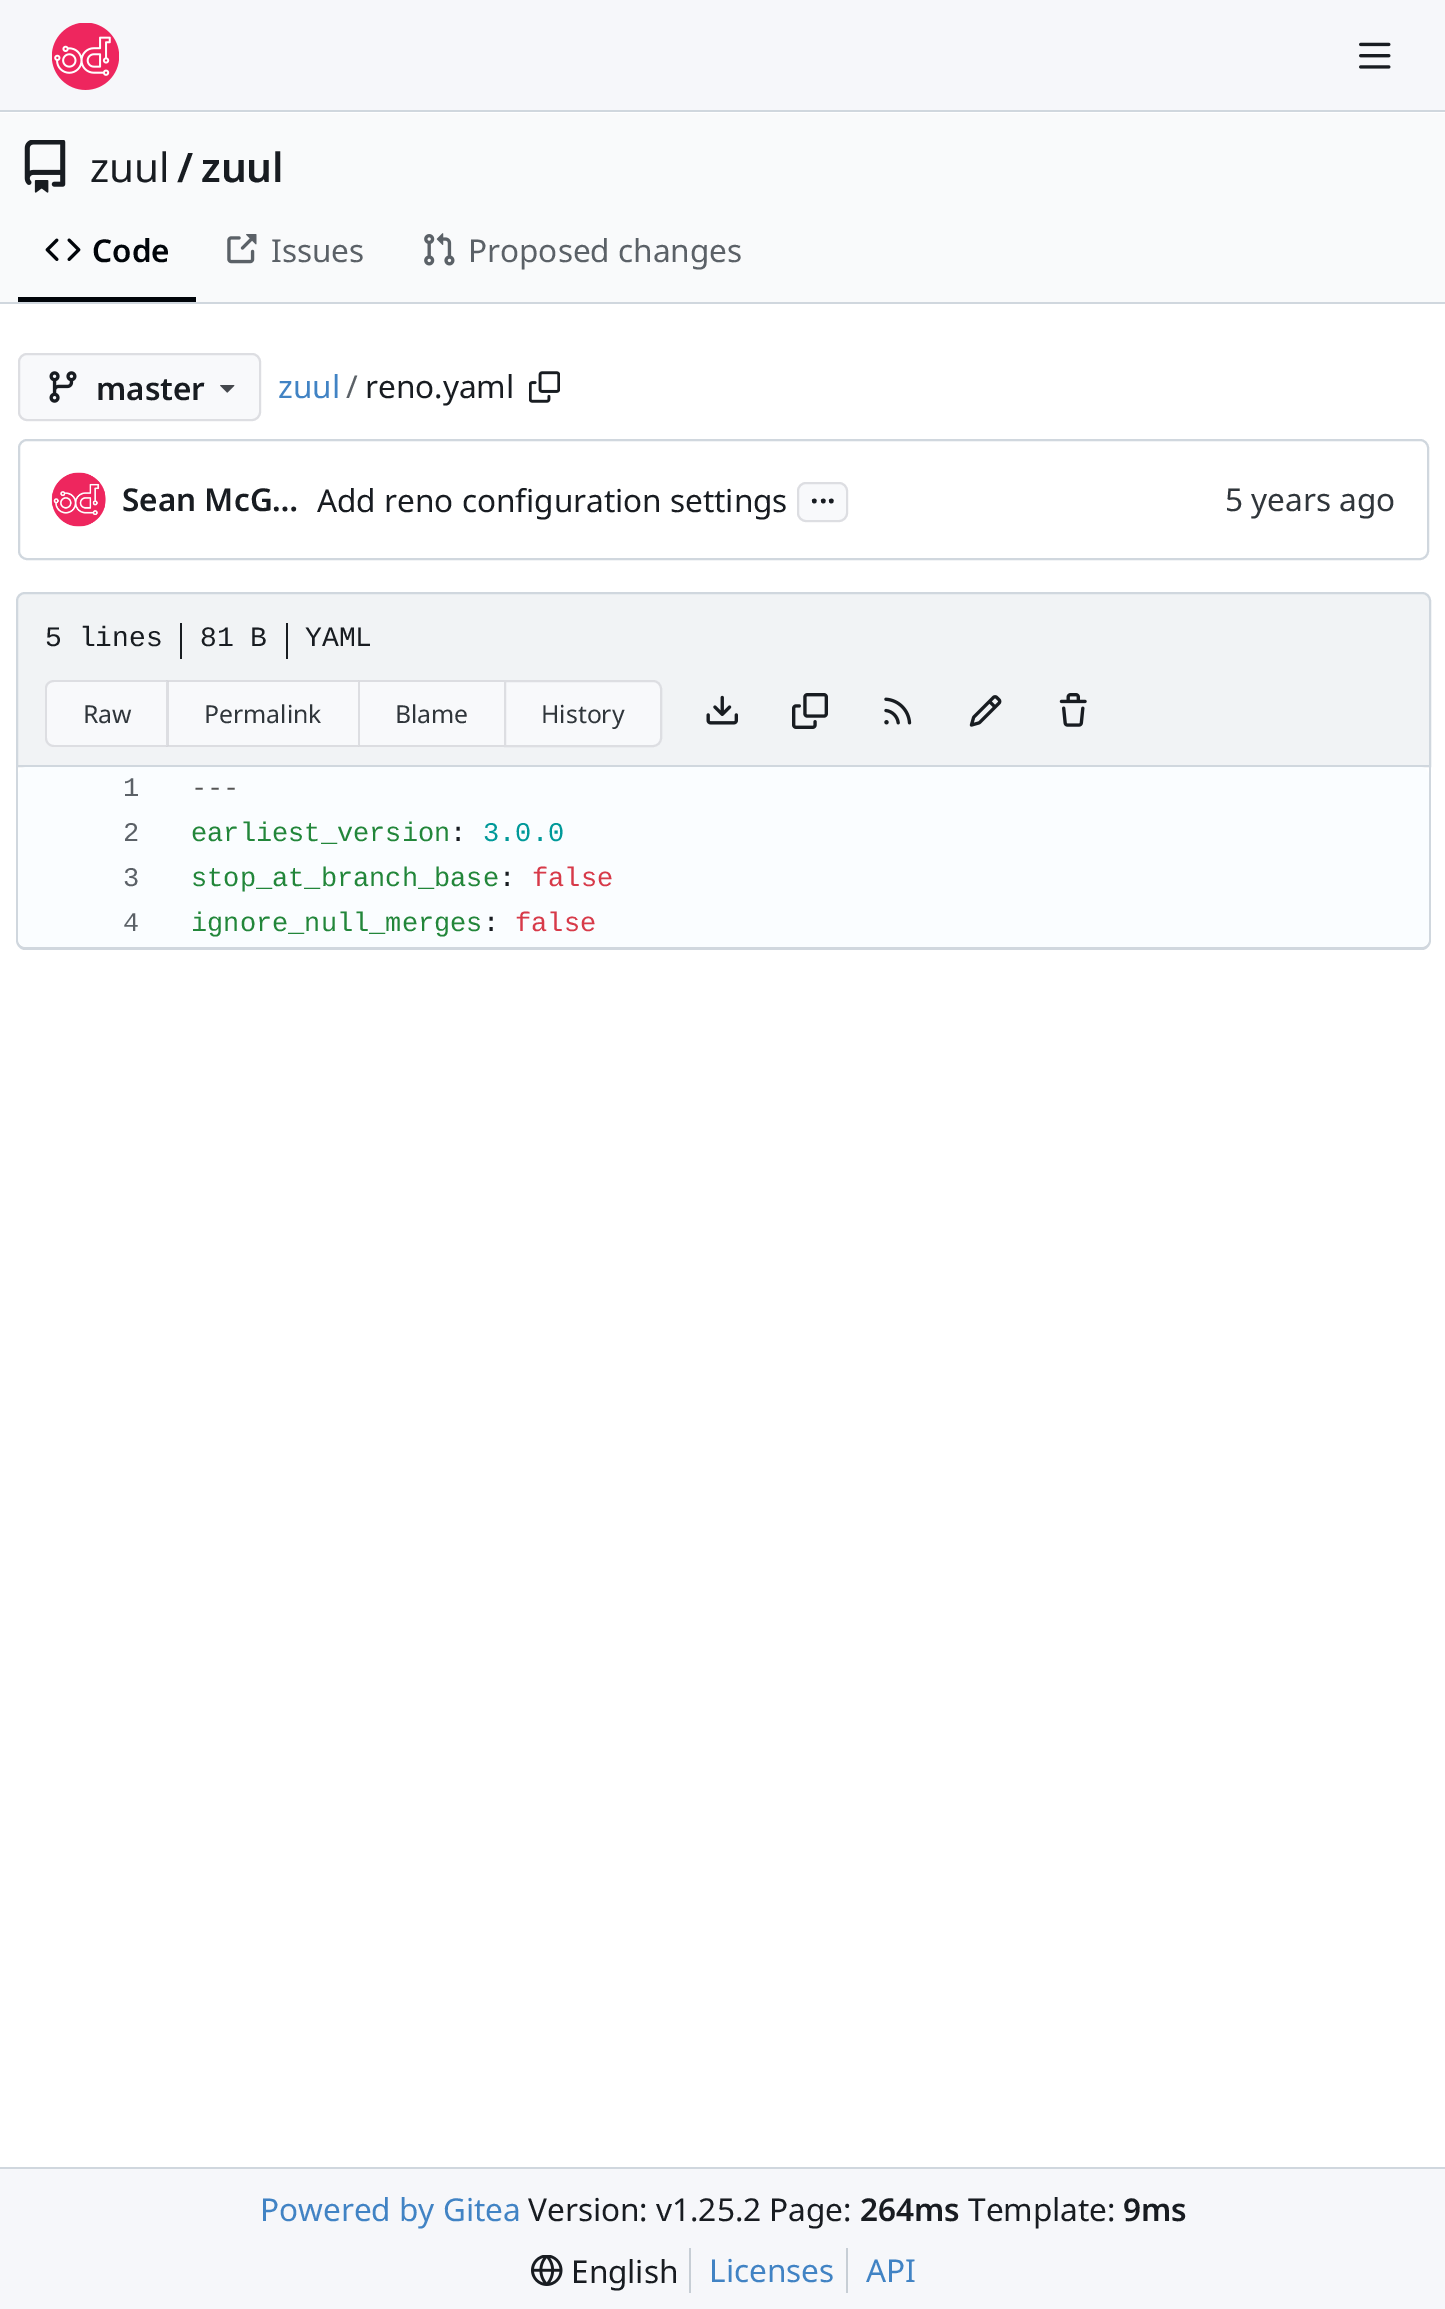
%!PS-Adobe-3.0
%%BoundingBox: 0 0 1445 2309
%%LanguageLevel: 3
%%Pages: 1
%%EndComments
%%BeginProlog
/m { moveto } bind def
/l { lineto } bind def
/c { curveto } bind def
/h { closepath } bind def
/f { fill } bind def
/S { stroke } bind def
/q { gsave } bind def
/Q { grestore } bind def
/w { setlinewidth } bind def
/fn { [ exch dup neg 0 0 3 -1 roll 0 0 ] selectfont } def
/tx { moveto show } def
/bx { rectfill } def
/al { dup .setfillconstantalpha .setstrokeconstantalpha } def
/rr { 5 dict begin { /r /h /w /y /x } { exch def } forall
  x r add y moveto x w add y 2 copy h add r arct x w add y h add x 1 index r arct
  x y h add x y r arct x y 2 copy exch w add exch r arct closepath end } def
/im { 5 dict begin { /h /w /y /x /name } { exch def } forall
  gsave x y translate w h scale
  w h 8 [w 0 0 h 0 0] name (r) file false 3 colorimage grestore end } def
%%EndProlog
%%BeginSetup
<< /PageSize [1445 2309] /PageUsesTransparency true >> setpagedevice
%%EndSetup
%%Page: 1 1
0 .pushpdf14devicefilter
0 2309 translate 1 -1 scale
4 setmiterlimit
1 setgray
0 0 1445 2309 bx
0.965 0.969 0.98 setrgbcolor
0 0 1445 110 bx
0.816 0.843 0.871 setrgbcolor
0 110 1445 2 bx
(image0.raw) 52 23 67 67 im
(image1.raw) 1359 42 32 27 im
0.976 0.98 0.984 setrgbcolor
0 113 1445 189 bx
(image2.raw) 24 140 42 53 im
/NotoSans-Regular 40.5 fn
0.094 0.11 0.129 setrgbcolor
(zuul) 90 182 tx
/NotoSans-SemiBold 40.5 fn
(/) 177 182 tx
(zuul) 201 182 tx
0.004 0.02 0.039 setrgbcolor
18 297 178 5 bx
(image3.raw) 45 238 36 23 im
/NotoSans-SemiBold 31.5 fn
(Code) 92 262 tx
(image4.raw) 227 234 30 30 im
/NotoSans-Regular 31.5 fn
0.357 0.38 0.404 setrgbcolor
(Issues) 271 262 tx
(image5.raw) 424 233 31 33 im
(Proposed changes) 468 262 tx
0.816 0.843 0.871 setrgbcolor
0 302 1445 2 bx
0.973 0.976 0.984 setrgbcolor
18 353 243 68 9 rr f
0.11 al
0 0 0.09 setrgbcolor
2 w
19 354 241 66 8 rr S
1 al
(image6.raw) 49 371 28 32 im
/NotoSans-SemiBold 31.5 fn
0.094 0.11 0.129 setrgbcolor
(master) 96 400 tx
(image7.raw) 220 385 15 8 im
/NotoSans-Regular 31.5 fn
0.255 0.514 0.769 setrgbcolor
(zuul) 278 398 tx
0.357 0.38 0.404 setrgbcolor
(/) 346 398 tx
0.094 0.11 0.129 setrgbcolor
(reno.yaml) 365 398 tx
(image8.raw) 529 371 31 32 im
0.816 0.843 0.871 setrgbcolor
19 440 1409 119 8 rr S
(image9.raw) 51 472 55 55 im
/NotoSans-SemiBold 31.5 fn
0.094 0.11 0.129 setrgbcolor
(Sean McG…) 122 511 tx
/NotoSans-Regular 31.5 fn
(Add reno configuration settings) 317 512 tx
0.973 0.976 0.984 setrgbcolor
797 482 51 40 9 rr f
0.11 al
0 0 0.09 setrgbcolor
798 483 49 38 8 rr S
/NotoSans-SemiBold 31.5 fn
1 al
0.094 0.11 0.129 setrgbcolor
(...) 810 503 tx
/NotoSans-Regular 31.5 fn
0.188 0.212 0.231 setrgbcolor
(5 years ago) 1225 511 tx
0.945 0.953 0.961 setrgbcolor
25 593 m 1422 593 l 1426.5 593 1430 596.5 1430 601 c 1430 766 l 17 766 l 17 601 l 17 596.5 20.5 593 25 593 c h q f Q
0.816 0.843 0.871 setrgbcolor
S
/LiberationMono-Regular 28 fn
0.094 0.11 0.129 setrgbcolor
(5 lines) 45 646 tx
180 623 2 36 bx
(81 B) 200 646 tx
286 623 2 36 bx
(YAML) 305 646 tx
0.973 0.976 0.984 setrgbcolor
54 680 m 167 680 l 167 747 l 54 747 l 49 747 45 743 45 738 c 45 689 l 45 684 49 680 54 680 c h f
0.11 al
0 0 0.09 setrgbcolor
54 680 m 166 680 l 166 747 l 54 747 l 49 747 45 743 45 738 c 45 688 l 45 684 49 680 54 680 c h 54 682 m 166 682 l 166 745 l 54 745 l 50 745 47 742 47 738 c 47 688 l 47 685 50 682 54 682 c h eofill
/NotoSans-Regular 24.75 fn
1 al
0.188 0.212 0.231 setrgbcolor
(Raw) 83 723 tx
0.973 0.976 0.984 setrgbcolor
167 680 337 67 bx
0.863 0.867 0.882 setrgbcolor
166 680 m 358 680 l 358 682 l 169 682 l h f
358 747 m 166 747 l 169 745 l 358 745 l h f
0.11 al
0 0 0.09 setrgbcolor
166 747 m 166 680 l 169 682 l 169 745 l h f
1 al
0.188 0.212 0.231 setrgbcolor
(Permalink) 204 723 tx
0.863 0.867 0.882 setrgbcolor
358 680 m 504 680 l 504 682 l 360 682 l h f
504 747 m 358 747 l 360 745 l 504 745 l h f
0.11 al
0 0 0.09 setrgbcolor
358 747 m 358 680 l 360 682 l 360 745 l h f
1 al
0.188 0.212 0.231 setrgbcolor
(Blame) 395 723 tx
0.973 0.976 0.984 setrgbcolor
504 680 m 653 680 l 658 680 662 684 662 689 c 662 738 l 662 743 658 747 653 747 c 504 747 l h f
0.11 al
0 0 0.09 setrgbcolor
505 681 m 653 681 l 657.5 681 661 684.5 661 689 c 661 738 l 661 742.5 657.5 746 653 746 c 505 746 l h S
1 al
0.188 0.212 0.231 setrgbcolor
(History) 541 723 tx
(image10.raw) 706 695 32 30 im
(image11.raw) 792 693 36 36 im
(image12.raw) 884 697 28 28 im
(image13.raw) 969 695 33 32 im
(image14.raw) 1059 693 28 34 im
0.816 0.843 0.871 setrgbcolor
16 767 m 1431 767 l 1431 940 l 1431 945 1427 950 1422 950 c 25 950 l 20 950 16 945 16 940 c h 18 767 m 1429 767 l 1429 940 l 1429 944 1426 947 1422 947 c 25 947 l 21 947 18 944 18 940 c h eofill
0.98 0.992 1 setrgbcolor
18 767 1411 180 9 rr f
/LiberationMono-Regular 27 fn
0.357 0.38 0.404 setrgbcolor
(1) 123 796 tx
0.333 setgray
(---) 191 796 tx
0.357 0.38 0.404 setrgbcolor
(2) 123 841 tx
0.133 0.525 0.227 setrgbcolor
(earliest_version) 191 841 tx
0.094 0.11 0.129 setrgbcolor
(:) 450 841 tx
0 0.6 0.6 setrgbcolor
(3.0.0) 483 841 tx
0.357 0.38 0.404 setrgbcolor
(3) 123 886 tx
0.133 0.525 0.227 setrgbcolor
(stop_at_branch_base) 191 886 tx
0.094 0.11 0.129 setrgbcolor
(:) 499 886 tx
0.843 0.227 0.286 setrgbcolor
(false) 532 886 tx
0.357 0.38 0.404 setrgbcolor
(4) 123 931 tx
0.133 0.525 0.227 setrgbcolor
(ignore_null_merges) 191 931 tx
0.094 0.11 0.129 setrgbcolor
(:) 483 931 tx
0.843 0.227 0.286 setrgbcolor
(false) 515 931 tx
0.965 0.969 0.98 setrgbcolor
0 2169 1445 140 bx
0.816 0.843 0.871 setrgbcolor
0 2167 1445 2 bx
/NotoSans-Regular 31.5 fn
0.255 0.514 0.769 setrgbcolor
(Powered by Gitea) 260 2221 tx
0.094 0.11 0.129 setrgbcolor
(Version: v1.25.2 Page:) 528 2221 tx
/NotoSans-SemiBold 31.5 fn
(264ms) 860 2221 tx
/NotoSans-Regular 31.5 fn
(Template:) 968 2221 tx
/NotoSans-SemiBold 31.5 fn
(9ms) 1123 2221 tx
(image15.raw) 531 2255 32 31 im
/NotoSans-Regular 31.5 fn
(English) 571 2283 tx
0.78 0.808 0.835 setrgbcolor
689 2248 2 45 bx
0.255 0.514 0.769 setrgbcolor
(Licenses) 709 2282 tx
0.78 0.808 0.835 setrgbcolor
846 2248 2 45 bx
0.255 0.514 0.769 setrgbcolor
(API) 866 2282 tx
.poppdf14devicefilter showpage
%%EOF
